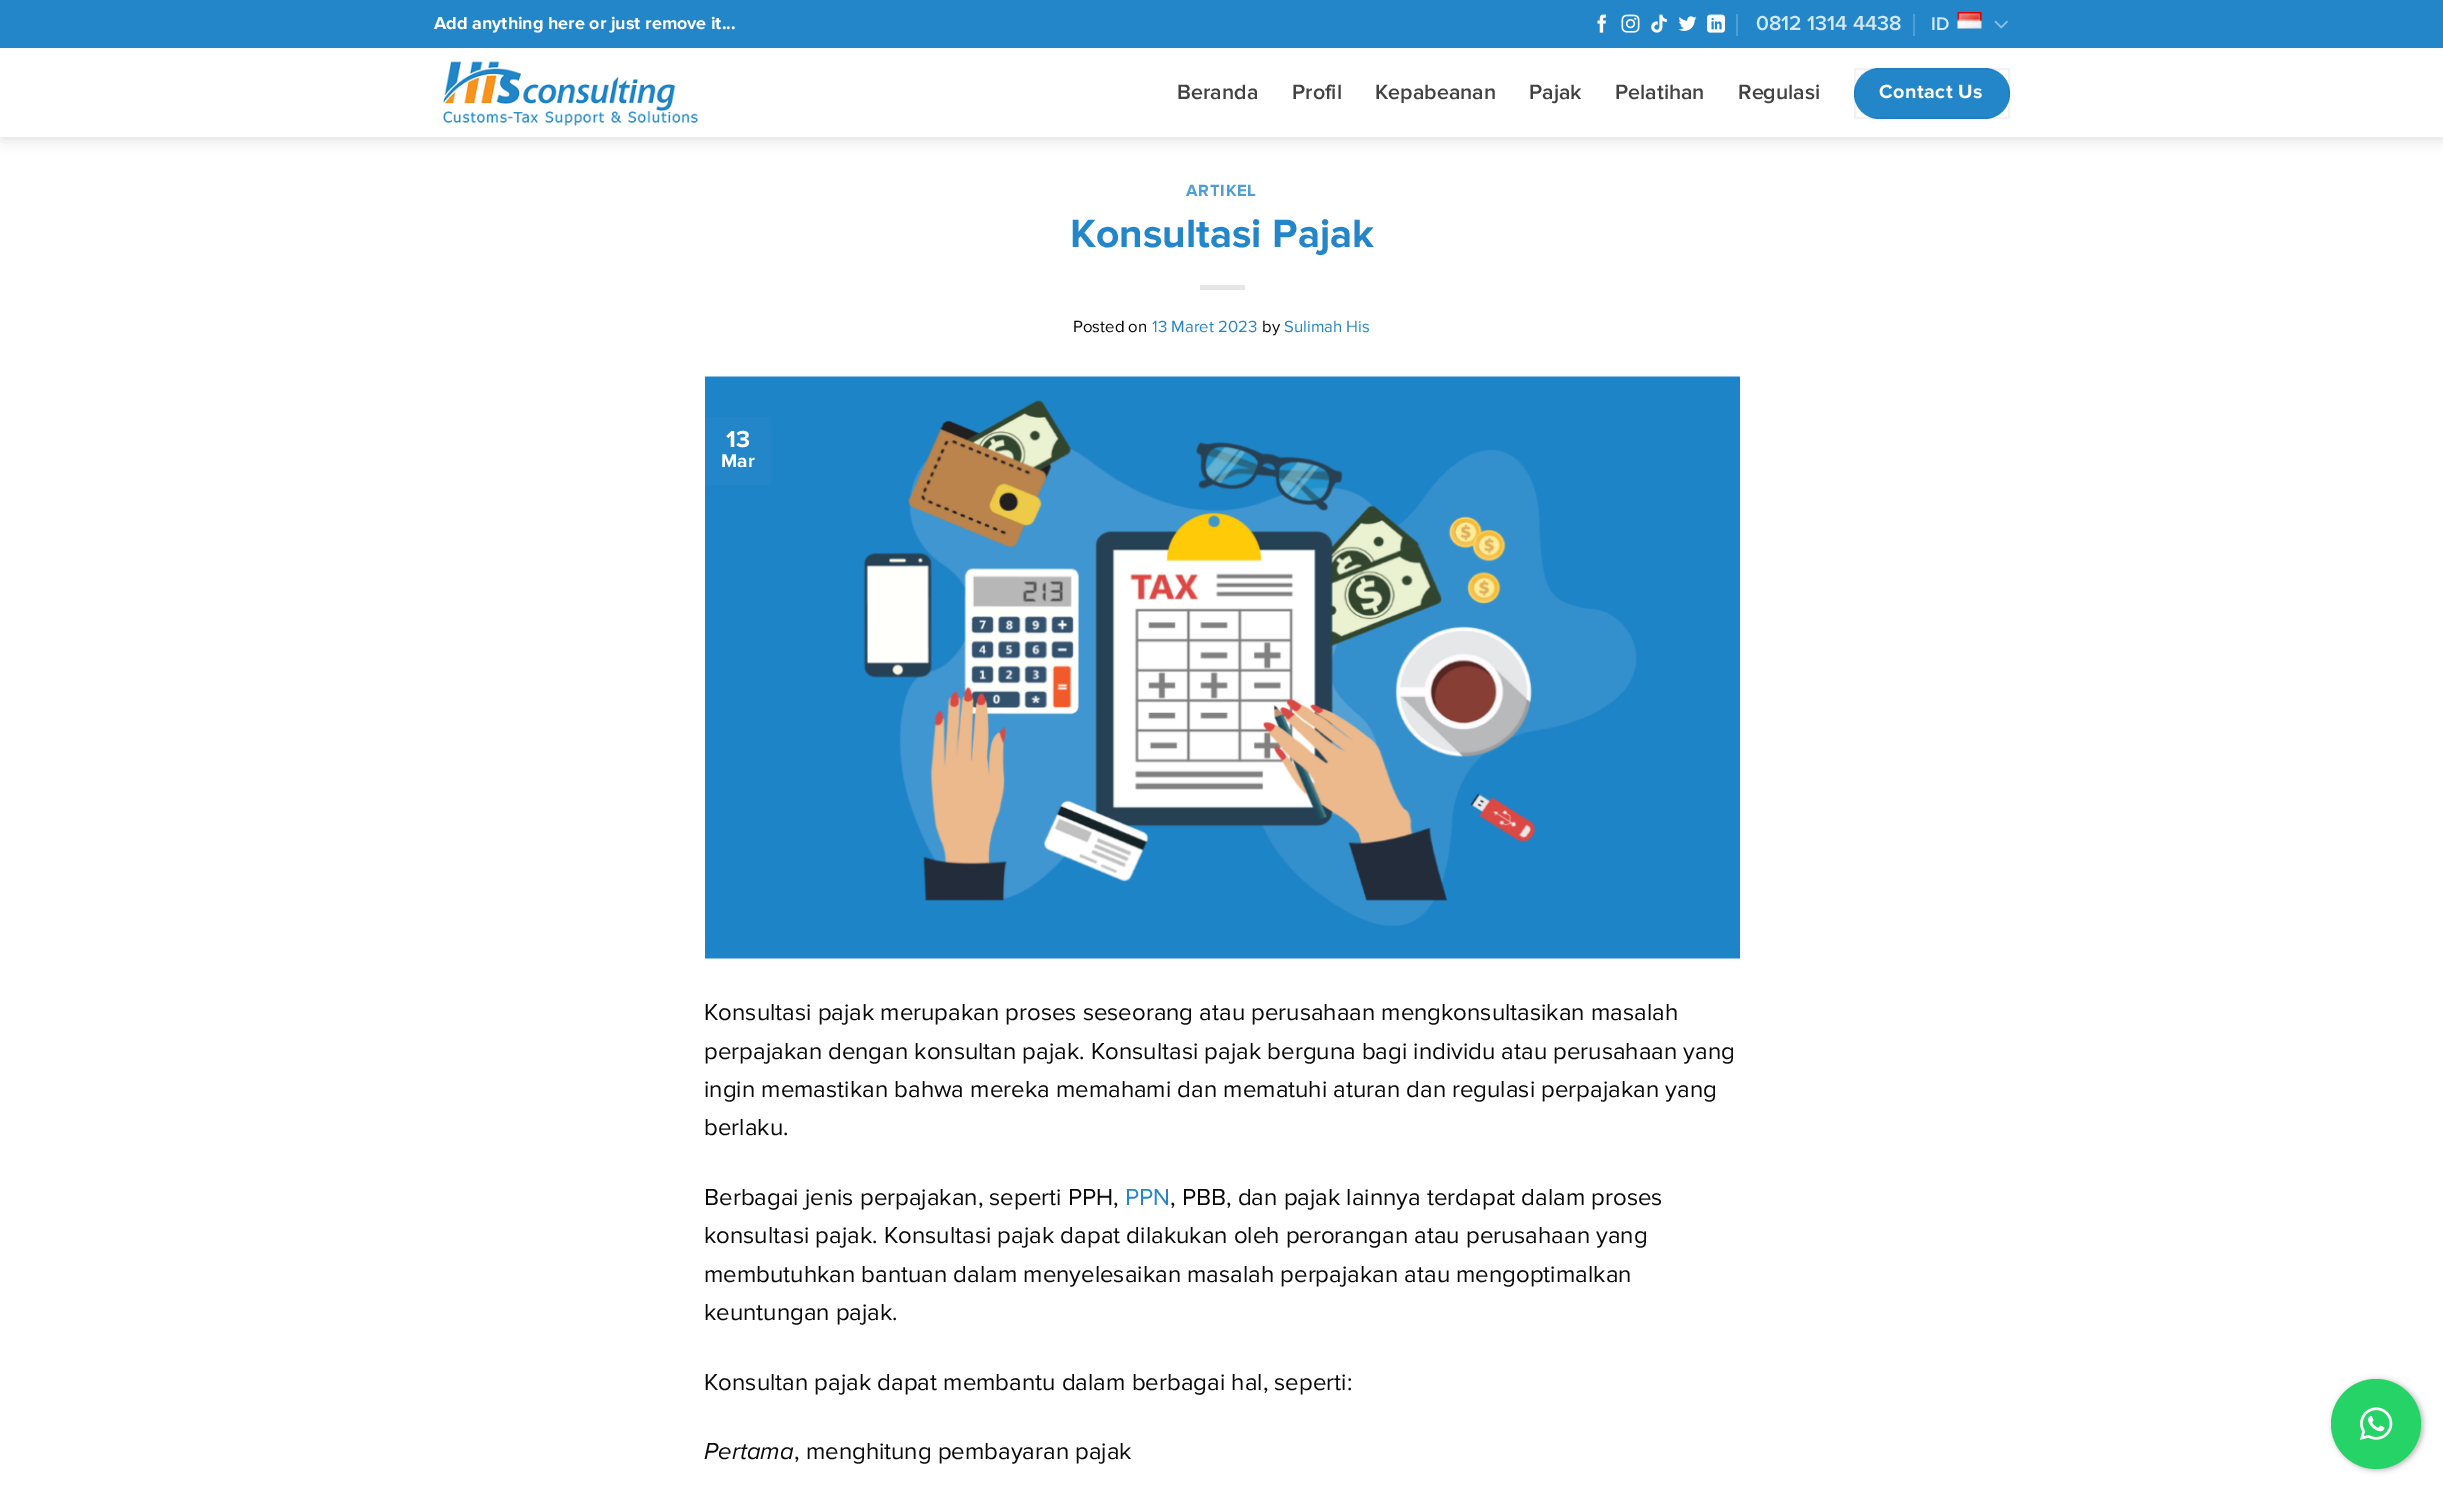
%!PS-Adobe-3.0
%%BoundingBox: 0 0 2443 1490
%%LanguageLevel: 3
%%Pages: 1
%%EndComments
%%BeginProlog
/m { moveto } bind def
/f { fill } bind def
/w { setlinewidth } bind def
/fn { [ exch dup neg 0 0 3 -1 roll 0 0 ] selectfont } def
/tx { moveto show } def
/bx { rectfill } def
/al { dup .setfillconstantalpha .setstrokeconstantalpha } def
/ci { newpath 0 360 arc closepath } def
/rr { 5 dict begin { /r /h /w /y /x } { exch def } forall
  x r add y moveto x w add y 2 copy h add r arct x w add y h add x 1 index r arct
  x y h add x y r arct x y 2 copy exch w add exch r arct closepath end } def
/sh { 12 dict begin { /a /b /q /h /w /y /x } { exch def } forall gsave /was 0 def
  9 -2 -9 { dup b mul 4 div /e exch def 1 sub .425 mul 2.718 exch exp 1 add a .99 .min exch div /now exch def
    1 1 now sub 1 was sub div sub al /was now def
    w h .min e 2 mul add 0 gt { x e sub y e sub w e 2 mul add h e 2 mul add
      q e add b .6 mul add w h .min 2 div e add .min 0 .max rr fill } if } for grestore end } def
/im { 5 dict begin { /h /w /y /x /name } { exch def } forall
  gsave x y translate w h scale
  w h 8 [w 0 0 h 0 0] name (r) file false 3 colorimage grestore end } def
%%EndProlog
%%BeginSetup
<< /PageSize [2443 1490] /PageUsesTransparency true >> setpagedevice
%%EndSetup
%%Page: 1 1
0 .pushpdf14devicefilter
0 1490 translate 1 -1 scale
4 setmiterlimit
1 setgray
0 0 2443 1490 bx
0 setgray
2 2 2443 136 0 7.5 0.15 sh
0.137 0.525 0.788 setrgbcolor
0 0 2443 48 bx
/ProximaNova-Bold 18 fn
1 setgray
(Add anything here or just remove it...) 434 29 tx
(image0.raw) 1597 14 9 19 im
(image1.raw) 1621 14 19 19 im
(image2.raw) 1651 14 16 19 im
(image3.raw) 1678 16 19 15 im
(image4.raw) 1707 14 18 19 im
0.31 0.62 0.831 setrgbcolor
1736 14 2 22 bx
/ProximaNova-SemiBold 21 fn
0.827 0.906 0.957 setrgbcolor
(0812 1314 4438) 1756 30 tx
0.31 0.62 0.831 setrgbcolor
1913 14 2 22 bx
/ProximaNova-SemiBold 19 fn
0.827 0.906 0.957 setrgbcolor
(ID) 1931 30 tx
(image5.raw) 1957 12 25 17 im
(image6.raw) 1994 20 14 9 im
1 setgray
0 48 2443 89 bx
(image7.raw) 443 61 255 65 im
/ProximaNova-SemiBold 21.5 fn
0.259 setgray
(Beranda) 1177 99 tx
(Profil) 1292 99 tx
(Kepabeanan) 1375 99 tx
(Pajak) 1529 99 tx
(Pelatihan) 1615 99 tx
(Regulasi) 1738 99 tx
0.137 0.525 0.788 setrgbcolor
1854 68 156 51 25.5 rr f
0.05 al
0 setgray
2 w
1855 69 154 49 rectstroke
/ProximaNova-Bold 19.75 fn
1 al
1 setgray
1879 98 m 0.5 0 (Contact Us) ashow
/ProximaNova-Bold 16.75 fn
0.31 0.62 0.831 setrgbcolor
1186 196 m 0.75 0 (ARTIKEL) ashow
/ProximaNova-Bold 40.75 fn
0.137 0.525 0.788 setrgbcolor
(Konsultasi Pajak) 1070 247 tx
0.902 setgray
1200 285 45 5 bx
/ProximaNova-Regular 16.75 fn
0.039 setgray
(Posted on) 1073 332 tx
0.137 0.525 0.788 setrgbcolor
(13 Maret 2023) 1152 332 tx
0.039 setgray
(by) 1262 332 tx
0.137 0.525 0.788 setrgbcolor
(Sulimah His) 1284 332 tx
(image8.raw) 705 376 1035 583 im
705 417 66 68 bx
/ProximaNova-Bold 24 fn
1 setgray
(13) 726 447 tx
/ProximaNova-Bold 19 fn
(Mar) 721 467 tx
/ProximaNova-Regular 24 fn
0.039 setgray
(Konsultasi pajak merupakan proses seseorang atau perusahaan mengkonsultasikan masalah) 704 1020 tx
(perpajakan dengan konsultan pajak. Konsultasi pajak berguna bagi individu atau perusahaan yang) 704 1059 tx
(ingin memastikan bahwa mereka memahami dan mematuhi aturan dan regulasi perpajakan yang) 704 1097 tx
(berlaku.) 704 1135 tx
(Berbagai jenis perpajakan, seperti PPH,) 704 1205 tx
0.137 0.525 0.788 setrgbcolor
(PPN) 1125 1205 tx
0.039 setgray
(, PBB, dan pajak lainnya terdapat dalam proses) 1170 1205 tx
(konsultasi pajak. Konsultasi pajak dapat dilakukan oleh perorangan atau perusahaan yang) 704 1243 tx
(membutuhkan bantuan dalam menyelesaikan masalah perpajakan atau mengoptimalkan) 704 1282 tx
(keuntungan pajak.) 704 1320 tx
(Konsultan pajak dapat membantu dalam berbagai hal, seperti:) 704 1390 tx
/ProximaNova-Italic 24 fn
(Pertama) 704 1459 tx
/ProximaNova-Regular 24 fn
(, menghitung pembayaran pajak) 794 1459 tx
0 setgray
2333 1380 90 90 45 3 0.3 sh
0.145 0.827 0.4 setrgbcolor
2376 1424 45 ci f
(image9.raw) 2360 1407 33 33 im
.poppdf14devicefilter showpage
%%EOF
